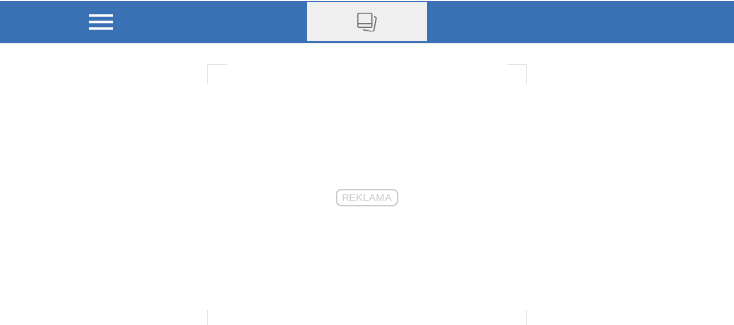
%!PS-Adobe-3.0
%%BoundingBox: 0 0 734 325
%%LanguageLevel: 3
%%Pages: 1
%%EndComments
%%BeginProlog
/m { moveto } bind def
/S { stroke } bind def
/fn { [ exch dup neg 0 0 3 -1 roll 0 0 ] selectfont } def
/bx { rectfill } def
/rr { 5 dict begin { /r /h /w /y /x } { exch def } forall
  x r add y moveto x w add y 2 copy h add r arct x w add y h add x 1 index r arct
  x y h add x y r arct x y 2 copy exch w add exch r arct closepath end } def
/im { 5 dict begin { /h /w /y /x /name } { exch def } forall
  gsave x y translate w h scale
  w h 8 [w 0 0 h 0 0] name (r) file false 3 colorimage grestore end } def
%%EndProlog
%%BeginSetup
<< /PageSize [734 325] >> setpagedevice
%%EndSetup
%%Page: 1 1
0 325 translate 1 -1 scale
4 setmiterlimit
1 setgray
0 0 734 325 bx
0.227 0.439 0.706 setrgbcolor
0 1 734 42 bx
0.937 setgray
0 43 734 1 bx
(image0.raw) 89 14 24 16 im
307 2 120 39 bx
(image1.raw) 357 12 20 20 im
(image2.raw) 207 64 320 261 im
0.792 setgray
336.5 189.5 61 16 4.5 rr S
/LiberationSans-Regular 10 fn
342 201 m 0.25 0 (REKLAMA) ashow
showpage
%%EOF
